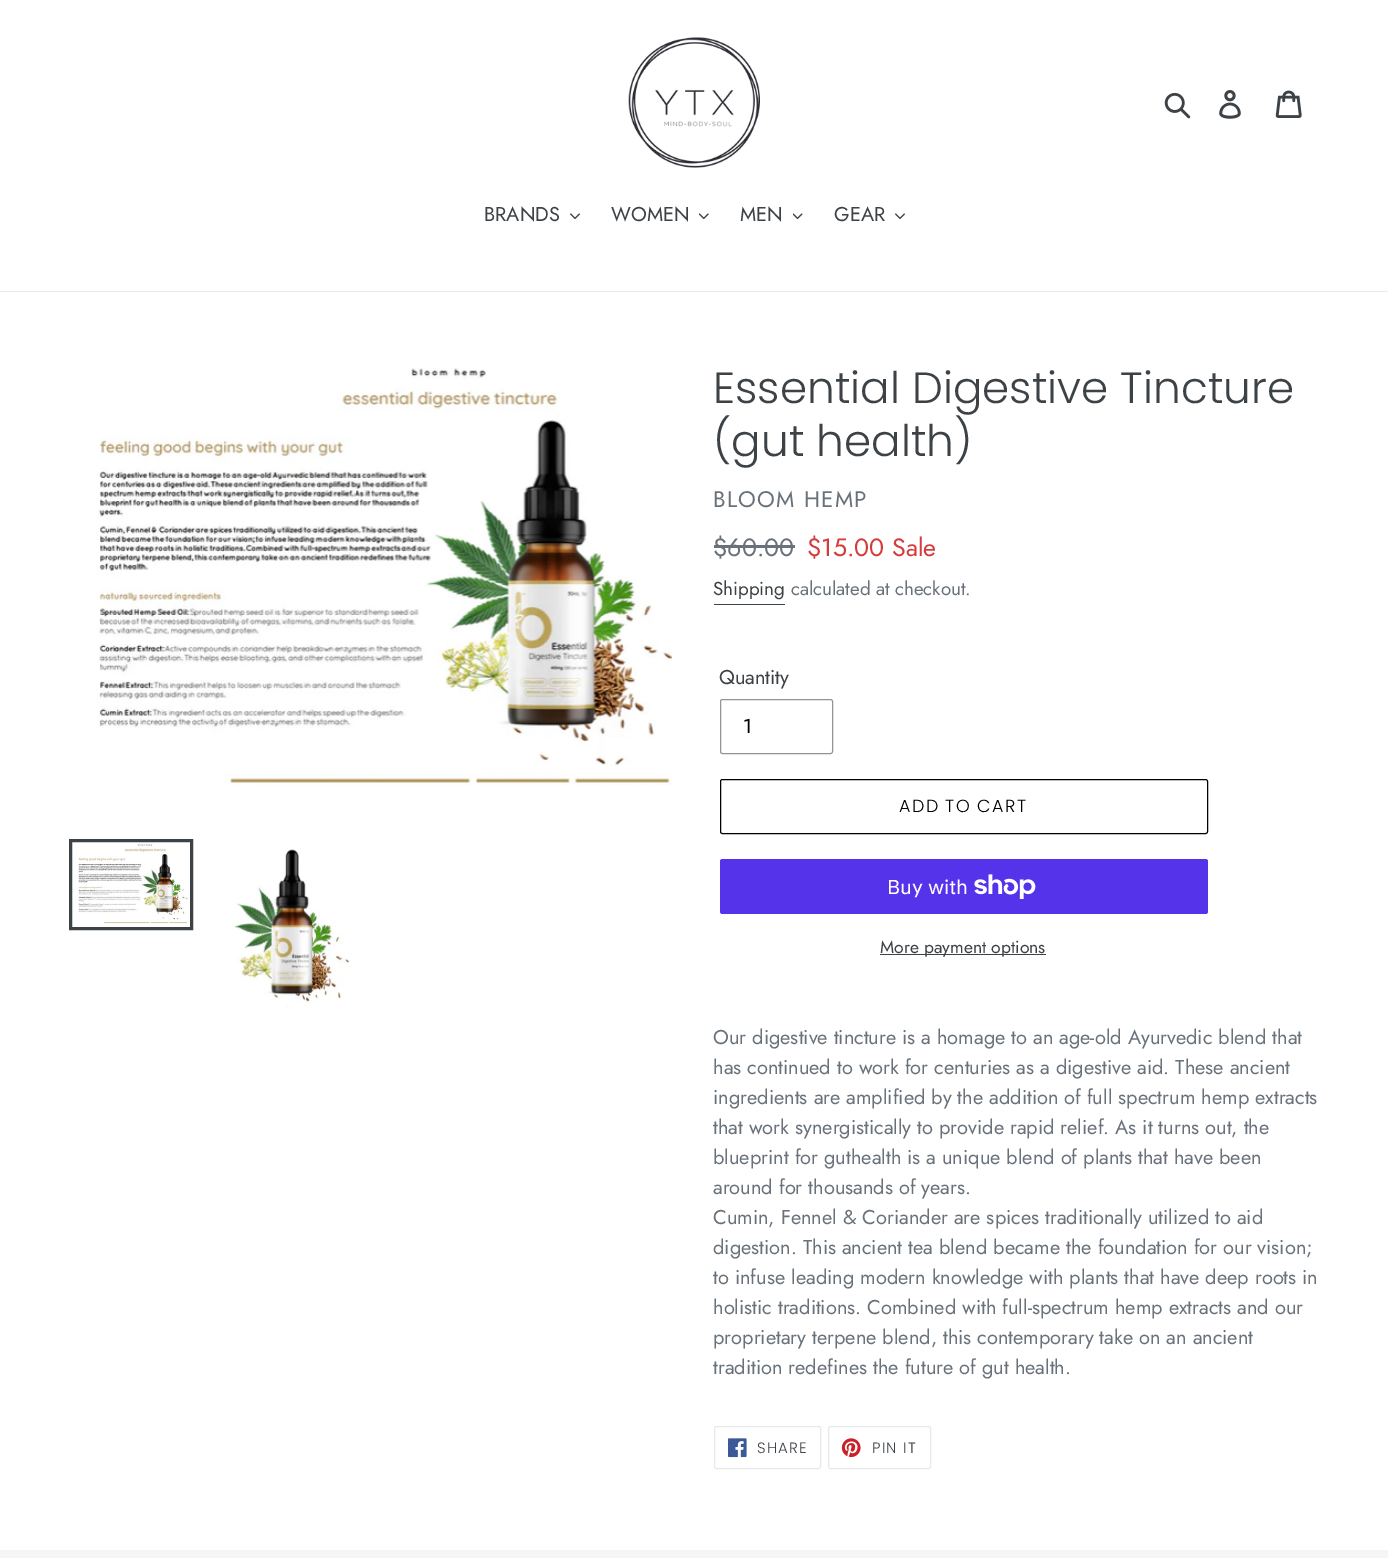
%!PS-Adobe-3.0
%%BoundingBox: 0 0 1388 1558
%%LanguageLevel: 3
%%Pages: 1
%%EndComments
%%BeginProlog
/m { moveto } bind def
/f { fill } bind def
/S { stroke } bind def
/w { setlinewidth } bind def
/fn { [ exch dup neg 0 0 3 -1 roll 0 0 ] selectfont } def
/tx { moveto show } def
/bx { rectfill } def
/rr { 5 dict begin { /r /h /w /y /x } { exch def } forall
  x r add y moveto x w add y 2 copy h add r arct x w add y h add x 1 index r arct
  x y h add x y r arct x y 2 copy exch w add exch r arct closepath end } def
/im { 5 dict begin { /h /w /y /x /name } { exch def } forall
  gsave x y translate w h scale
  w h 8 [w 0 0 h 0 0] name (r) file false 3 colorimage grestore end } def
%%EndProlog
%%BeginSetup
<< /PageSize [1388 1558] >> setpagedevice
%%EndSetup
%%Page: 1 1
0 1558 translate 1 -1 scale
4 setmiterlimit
1 setgray
0 0 1388 1558 bx
(image0.raw) 628 37 132 131 im
(image1.raw) 1164 92 27 27 im
(image2.raw) 1219 90 22 29 im
(image3.raw) 1275 90 27 28 im
0.91 0.914 0.922 setrgbcolor
0 291 1388 1 bx
/Jost-Regular 20 fn
0.239 0.259 0.275 setrgbcolor
(BRANDS) 484 221 tx
(image4.raw) 570 213 10 6 im
(WOMEN) 611 221 tx
(image5.raw) 699 213 10 7 im
(MEN) 740 221 tx
(image6.raw) 793 213 10 7 im
(GEAR) 834 221 tx
(image4.raw) 895 213 10 6 im
(image7.raw) 97 368 575 417 im
3 w
70.5 840.5 121 88 rectstroke
(image8.raw) 78 844 110 80 im
(image9.raw) 234 849 116 159 im
/Poppins-Light 43.75 fn
(Essential Digestive Tincture) 713 403 tx
(\(gut health\)) 713 456 tx
/Jost-Regular 22.5 fn
0.412 0.447 0.482 setrgbcolor
713 507 m 1.25 0 (BLOOM HEMP) ashow
/Jost-Regular 25 fn
($60.00) 713 556 tx
714 545 81 3 bx
0.839 0.231 0.231 setrgbcolor
($15.00 Sale) 807 556 tx
/Jost-Regular 18.75 fn
0.239 0.259 0.275 setrgbcolor
(Shipping) 713 595 tx
714 604 71 1 bx
0.412 0.447 0.482 setrgbcolor
(calculated at checkout.) 791 595 tx
/Jost-Regular 20 fn
0.239 0.259 0.275 setrgbcolor
(Quantity) 719 684 tx
0.58 setgray
1 w
720.5 699.5 112 54 2 rr S
0 setgray
(1) 743 733 tx
720.5 779.5 487 54 2 rr S
/Poppins-Light 17.5 fn
899 812 m 1.4 0 (ADD TO CART) ashow
0.329 0.2 0.922 setrgbcolor
720 859 488 55 2.5 rr f
/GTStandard-Regular 20 fn
1 setgray
(Buy with) 887 894 tx
(image10.raw) 974 874 62 25 im
0.239 0.259 0.275 setrgbcolor
880 954 166 1 bx
/Jost-Regular 17.5 fn
(More payment options) 880 953 tx
/Jost-Regular 20 fn
0.412 0.447 0.482 setrgbcolor
(Our digestive tincture is a homage to an age-old Ayurvedic blend that) 713 1044 tx
(has continued to work for centuries as a digestive aid. These ancient) 713 1074 tx
(ingredients are amplified by the addition of full spectrum hemp extracts) 713 1104 tx
(that work synergistically to provide rapid relief. As it turns out, the) 713 1134 tx
(blueprint for guthealth is a unique blend of plants that have been) 713 1164 tx
(around for thousands of years.) 713 1194 tx
(Cumin, Fennel & Coriander are spices traditionally utilized to aid) 713 1224 tx
(digestion. This ancient tea blend became the foundation for our vision;) 713 1254 tx
(to infuse leading modern knowledge with plants that have deep roots in) 713 1284 tx
(holistic traditions. Combined with full-spectrum hemp extracts and our) 713 1314 tx
(proprietary terpene blend, this contemporary take on an ancient) 713 1344 tx
(tradition redefines the future of gut health.) 713 1374 tx
0.91 0.914 0.922 setrgbcolor
714.5 1426.5 106 42 2 rr S
(image11.raw) 728 1438 19 20 im
/Poppins-Light 15 fn
0.239 0.259 0.275 setrgbcolor
757 1453 m 1.25 0 (SHARE) ashow
0.91 0.914 0.922 setrgbcolor
828.5 1426.5 102 42 2 rr S
(image12.raw) 841 1438 20 20 im
0.239 0.259 0.275 setrgbcolor
872 1453 m 1.25 0 (PIN IT) ashow
0.961 setgray
0 1550 1388 8 bx
showpage
%%EOF
